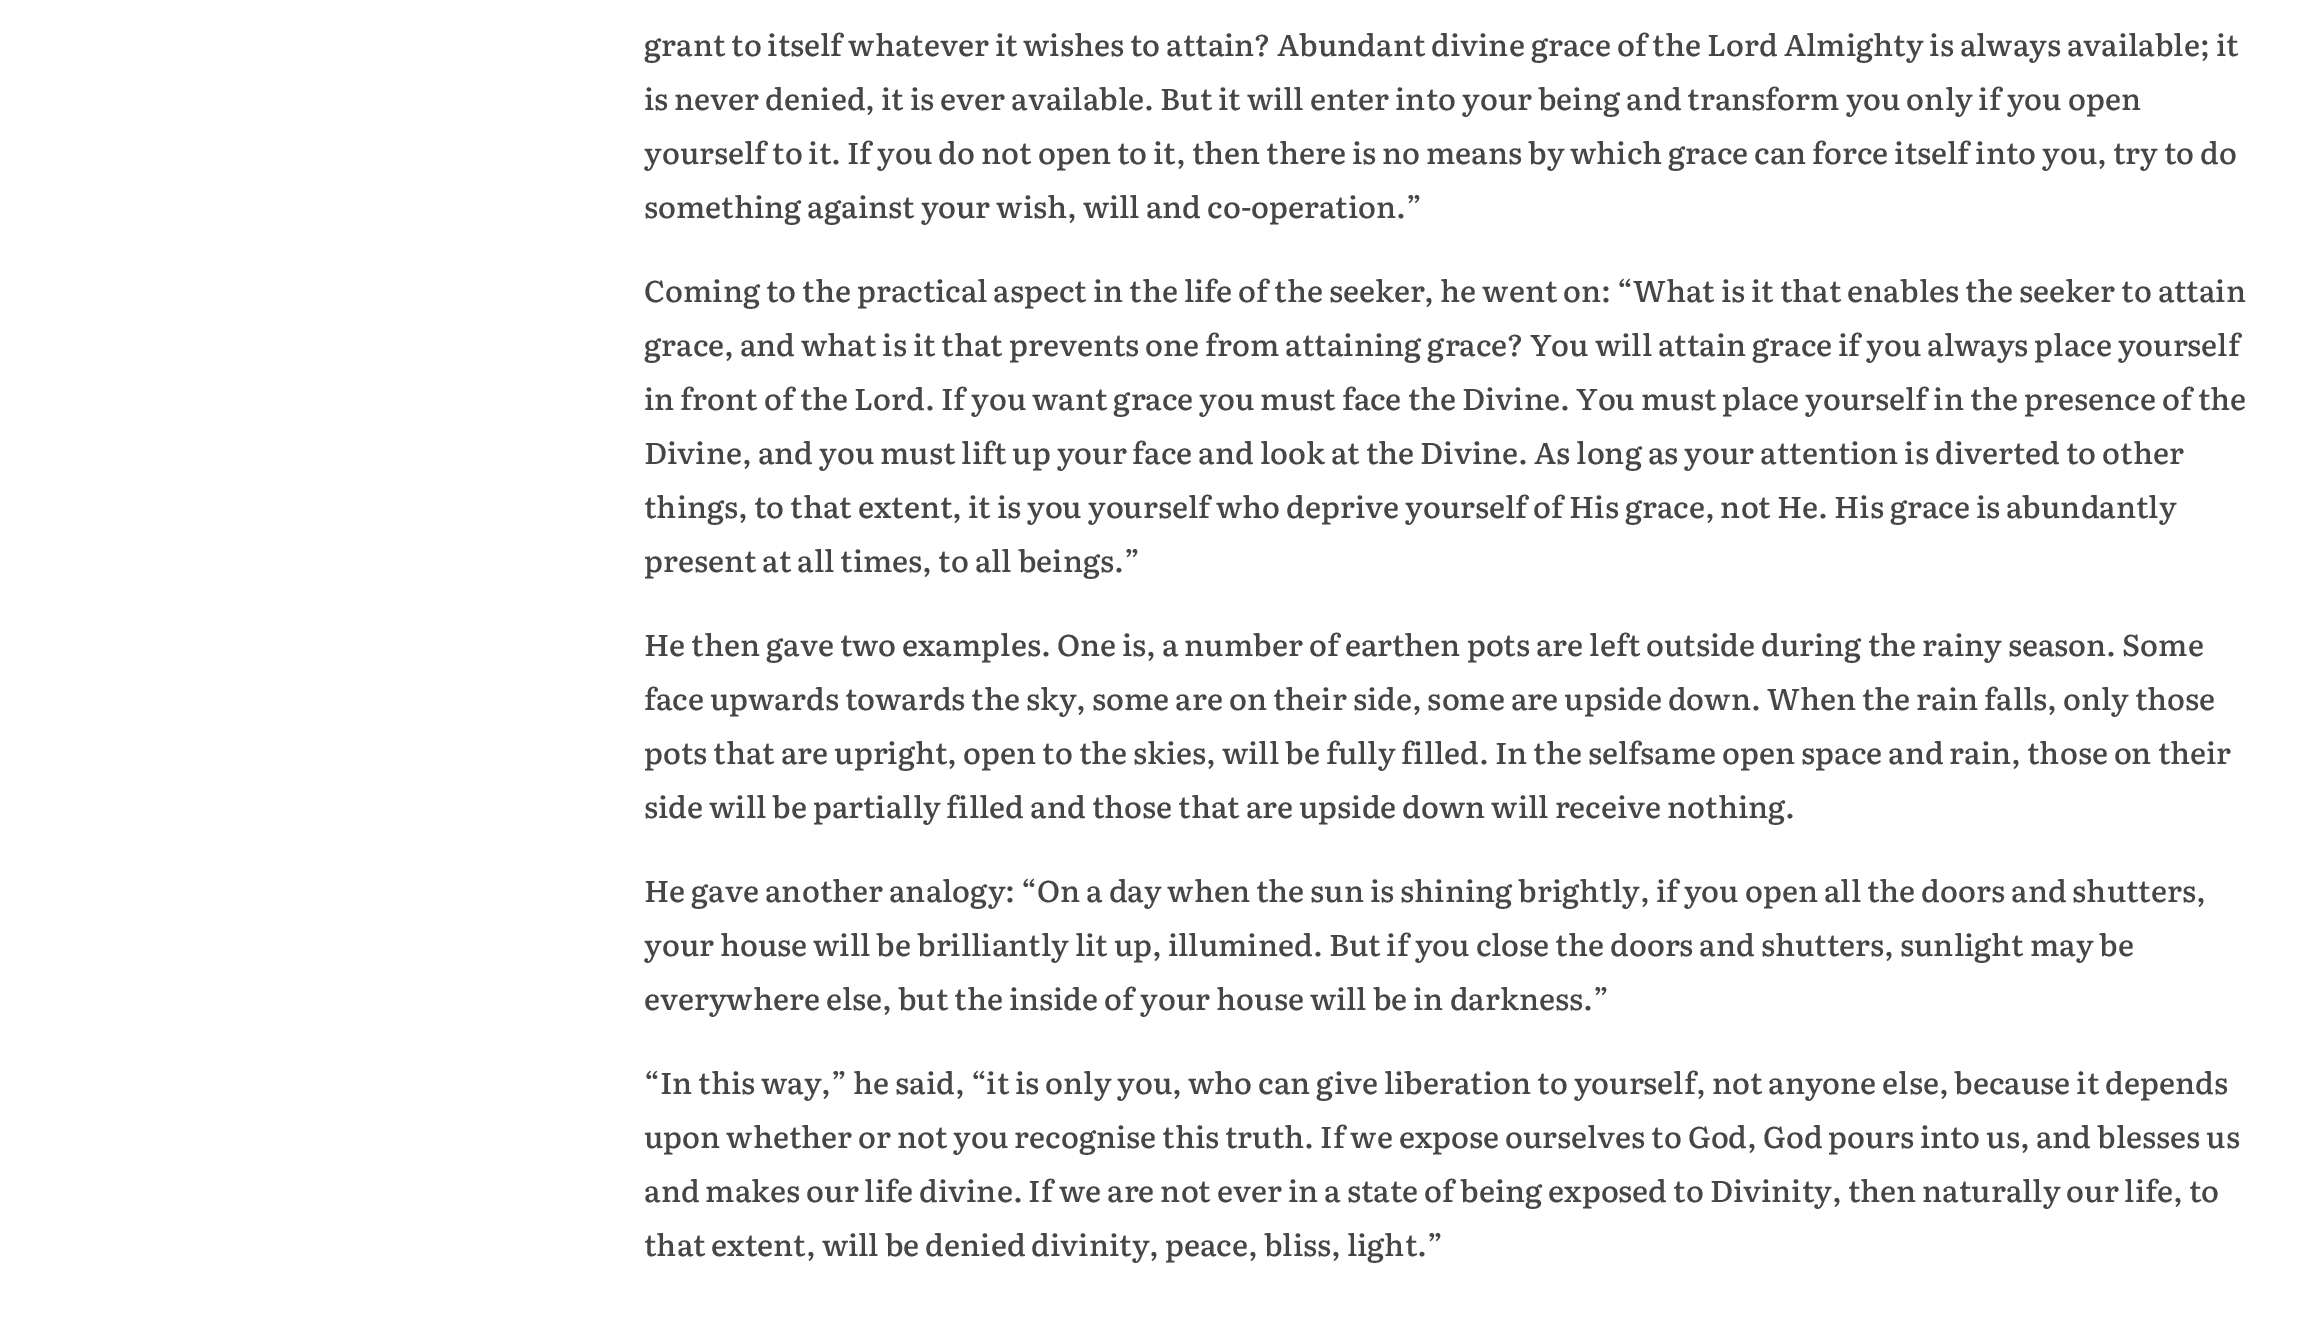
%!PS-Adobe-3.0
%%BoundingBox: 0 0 2308 1317
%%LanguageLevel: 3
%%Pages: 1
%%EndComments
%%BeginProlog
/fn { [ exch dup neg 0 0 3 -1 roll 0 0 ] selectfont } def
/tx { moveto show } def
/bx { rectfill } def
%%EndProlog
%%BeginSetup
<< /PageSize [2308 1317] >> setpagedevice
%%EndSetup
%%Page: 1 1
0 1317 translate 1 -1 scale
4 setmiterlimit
1 setgray
0 0 2308 1317 bx
/Literata-Medium 30 fn
0.275 setgray
(grant to itself whatever it wishes to attain? Abundant divine grace of the Lord Almighty is always available; it) 644 56 tx
(is never denied, it is ever available. But it will enter into your being and transform you only if you open) 644 110 tx
(yourself to it. If you do not open to it, then there is no means by which grace can force itself into you, try to do) 644 164 tx
(something against your wish, will and co-operation.”) 644 218 tx
(Coming to the practical aspect in the life of the seeker, he went on: “What is it that enables the seeker to attain) 644 302 tx
(grace, and what is it that prevents one from attaining grace? You will attain grace if you always place yourself) 644 356 tx
(in front of the Lord. If you want grace you must face the Divine. You must place yourself in the presence of the) 644 410 tx
(Divine, and you must lift up your face and look at the Divine. As long as your attention is diverted to other) 644 464 tx
(things, to that extent, it is you yourself who deprive yourself of His grace, not He. His grace is abundantly) 644 518 tx
(present at all times, to all beings.”) 644 572 tx
(He then gave two examples. One is, a number of earthen pots are left outside during the rainy season. Some) 644 656 tx
(face upwards towards the sky, some are on their side, some are upside down. When the rain falls, only those) 644 710 tx
(pots that are upright, open to the skies, will be fully filled. In the selfsame open space and rain, those on their) 644 764 tx
(side will be partially filled and those that are upside down will receive nothing.) 644 818 tx
(He gave another analogy: “On a day when the sun is shining brightly, if you open all the doors and shutters,) 644 902 tx
(your house will be brilliantly lit up, illumined. But if you close the doors and shutters, sunlight may be) 644 956 tx
(everywhere else, but the inside of your house will be in darkness.”) 644 1010 tx
(“In this way,” he said, “it is only you, who can give liberation to yourself, not anyone else, because it depends) 644 1094 tx
(upon whether or not you recognise this truth. If we expose ourselves to God, God pours into us, and blesses us) 644 1148 tx
(and makes our life divine. If we are not ever in a state of being exposed to Divinity, then naturally our life, to) 644 1202 tx
(that extent, will be denied divinity, peace, bliss, light.”) 644 1256 tx
showpage
%%EOF
